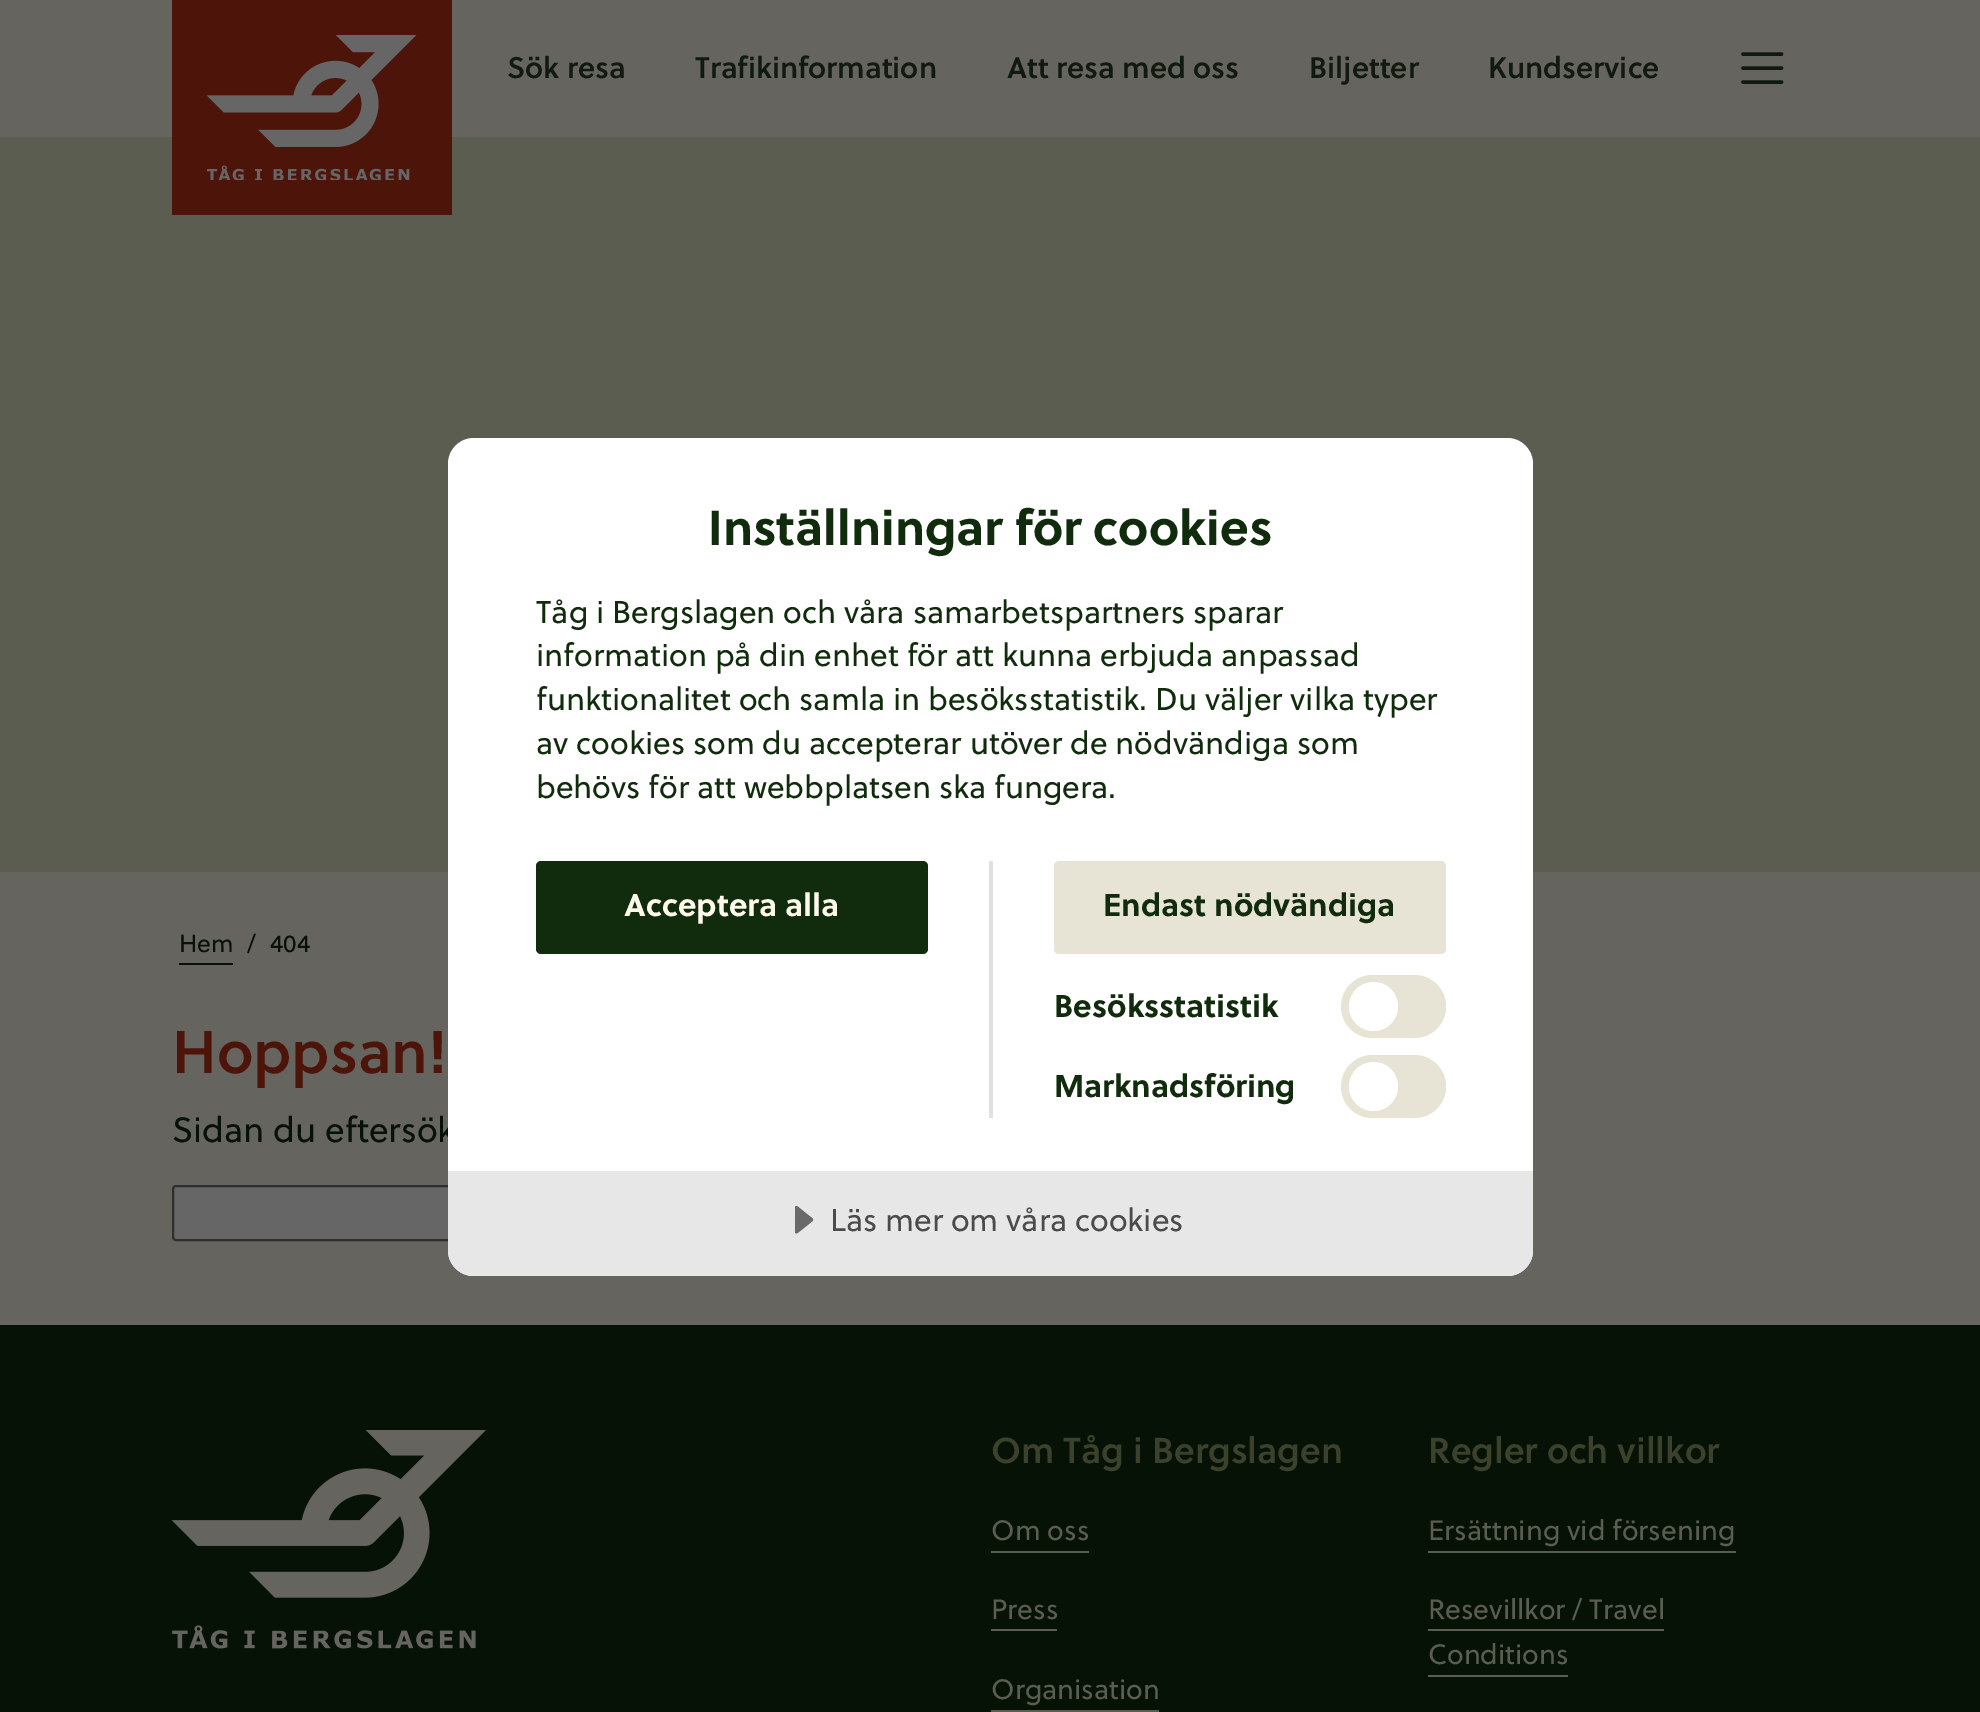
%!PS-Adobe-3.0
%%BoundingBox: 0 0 1980 1712
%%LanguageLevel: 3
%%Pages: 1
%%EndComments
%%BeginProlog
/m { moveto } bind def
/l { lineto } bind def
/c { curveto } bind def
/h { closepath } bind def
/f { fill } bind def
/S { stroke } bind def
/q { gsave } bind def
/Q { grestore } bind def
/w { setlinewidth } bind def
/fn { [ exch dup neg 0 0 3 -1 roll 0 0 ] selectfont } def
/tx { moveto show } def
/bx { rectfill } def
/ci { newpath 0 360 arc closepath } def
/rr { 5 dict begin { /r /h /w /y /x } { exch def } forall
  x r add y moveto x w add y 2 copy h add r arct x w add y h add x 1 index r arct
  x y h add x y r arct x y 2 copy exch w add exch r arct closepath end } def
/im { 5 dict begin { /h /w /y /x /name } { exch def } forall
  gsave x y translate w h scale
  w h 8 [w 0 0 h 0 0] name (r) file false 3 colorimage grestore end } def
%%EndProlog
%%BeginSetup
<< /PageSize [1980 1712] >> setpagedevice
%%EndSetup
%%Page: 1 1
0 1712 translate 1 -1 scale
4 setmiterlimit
0.4 0.392 0.369 setrgbcolor
0 0 1980 1712 bx
0.353 0.365 0.314 setrgbcolor
0 137 1980 735 bx
0.302 0.078 0.039 setrgbcolor
172 0 280 215 bx
(image0.raw) 207 35 210 145 im
/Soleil-Medium 29.75 fn
0.063 0.102 0.055 setrgbcolor
(Sök resa) 507 78 tx
(Trafikinformation) 695 78 tx
(Att resa med oss) 1007 78 tx
(Biljetter) 1309 78 tx
(Kundservice) 1488 78 tx
3.5 w
1 setlinecap
1743 54 m 1781.5 54 l 1743 68 m 1781.5 68 l 1743 82 m 1781.5 82 l S
/Soleil-Regular 24.5 fn
0.024 0.071 0.02 setrgbcolor
(Hem) 179 952 tx
179 963 54 2 bx
(/) 247 952 tx
(404) 270 952 tx
/Soleil-Medium 60 fn
0.302 0.078 0.039 setrgbcolor
(Hoppsan!) 172 1073 tx
/Soleil-Regular 35 fn
0.024 0.071 0.02 setrgbcolor
(Sidan du eftersök) 172 1142 tx
0.4 setgray
173 1186 351 54 3 rr q f Q
0.184 setgray
2 w
0 setlinecap
S
1 setgray
448 438 1085 838 26 rr f
/Soleil-Bold 49 fn
0.063 0.173 0.047 setrgbcolor
(Inställningar för cookies) 708 545 tx
/Soleil-Regular 31.5 fn
(Tåg i Bergslagen och våra samarbetspartners sparar) 536 623 tx
(information på din enhet för att kunna erbjuda anpassad) 536 666 tx
(funktionalitet och samla in besöksstatistik. Du väljer vilka typer) 536 710 tx
(av cookies som du accepterar utöver de nödvändiga som) 536 754 tx
(behövs för att webbplatsen ska fungera.) 536 798 tx
0.878 setgray
989 861 4 257 bx
0.063 0.173 0.047 setrgbcolor
536 861 392 93 5 rr f
/Soleil-Bold 31.5 fn
1 0.976 0.925 setrgbcolor
(Acceptera alla) 624 916 tx
0.906 0.894 0.835 setrgbcolor
1054 861 392 93 5 rr f
0.063 0.173 0.047 setrgbcolor
(Endast nödvändiga) 1103 916 tx
(Besöksstatistik) 1054 1017 tx
0.906 0.894 0.835 setrgbcolor
1341 975 105 63 31.5 rr f
1 setgray
1373.5 1006.5 24.5 ci f
0.063 0.173 0.047 setrgbcolor
(Marknadsföring) 1054 1097 tx
0.906 0.894 0.835 setrgbcolor
1341 1055 105 63 31.5 rr f
1 setgray
1373.5 1086.5 24.5 ci f
0.906 setgray
448 1171 m 1533 1171 l 1533 1250 l 1533 1264.5 1521.5 1276 1507 1276 c 474 1276 l 459.5 1276 448 1264.5 448 1250 c h f
(image1.raw) 795 1206 19 28 im
/Soleil-Regular 31.5 fn
0.294 setgray
(Läs mer om våra cookies) 830 1231 tx
0.024 0.071 0.02 setrgbcolor
0 1325 1980 387 bx
(image2.raw) 172 1430 314 219 im
/Soleil-Medium 36 fn
0.235 0.255 0.169 setrgbcolor
(Om Tåg i Bergslagen) 991 1463 tx
/Soleil-Regular 28 fn
0.353 0.365 0.314 setrgbcolor
(Om oss) 991 1540 tx
991 1551 98 2 bx
(Press) 991 1619 tx
991 1629 66 2 bx
(Organisation) 991 1699 tx
991 1710 168 2 bx
/Soleil-Medium 36 fn
0.235 0.255 0.169 setrgbcolor
(Regler och villkor) 1428 1463 tx
/Soleil-Regular 28 fn
0.353 0.365 0.314 setrgbcolor
(Ersättning vid försening) 1428 1540 tx
1428 1551 308 2 bx
(Resevillkor / Travel) 1428 1619 tx
1428 1629 236 2 bx
(Conditions) 1428 1664 tx
1428 1675 140 2 bx
showpage
%%EOF
